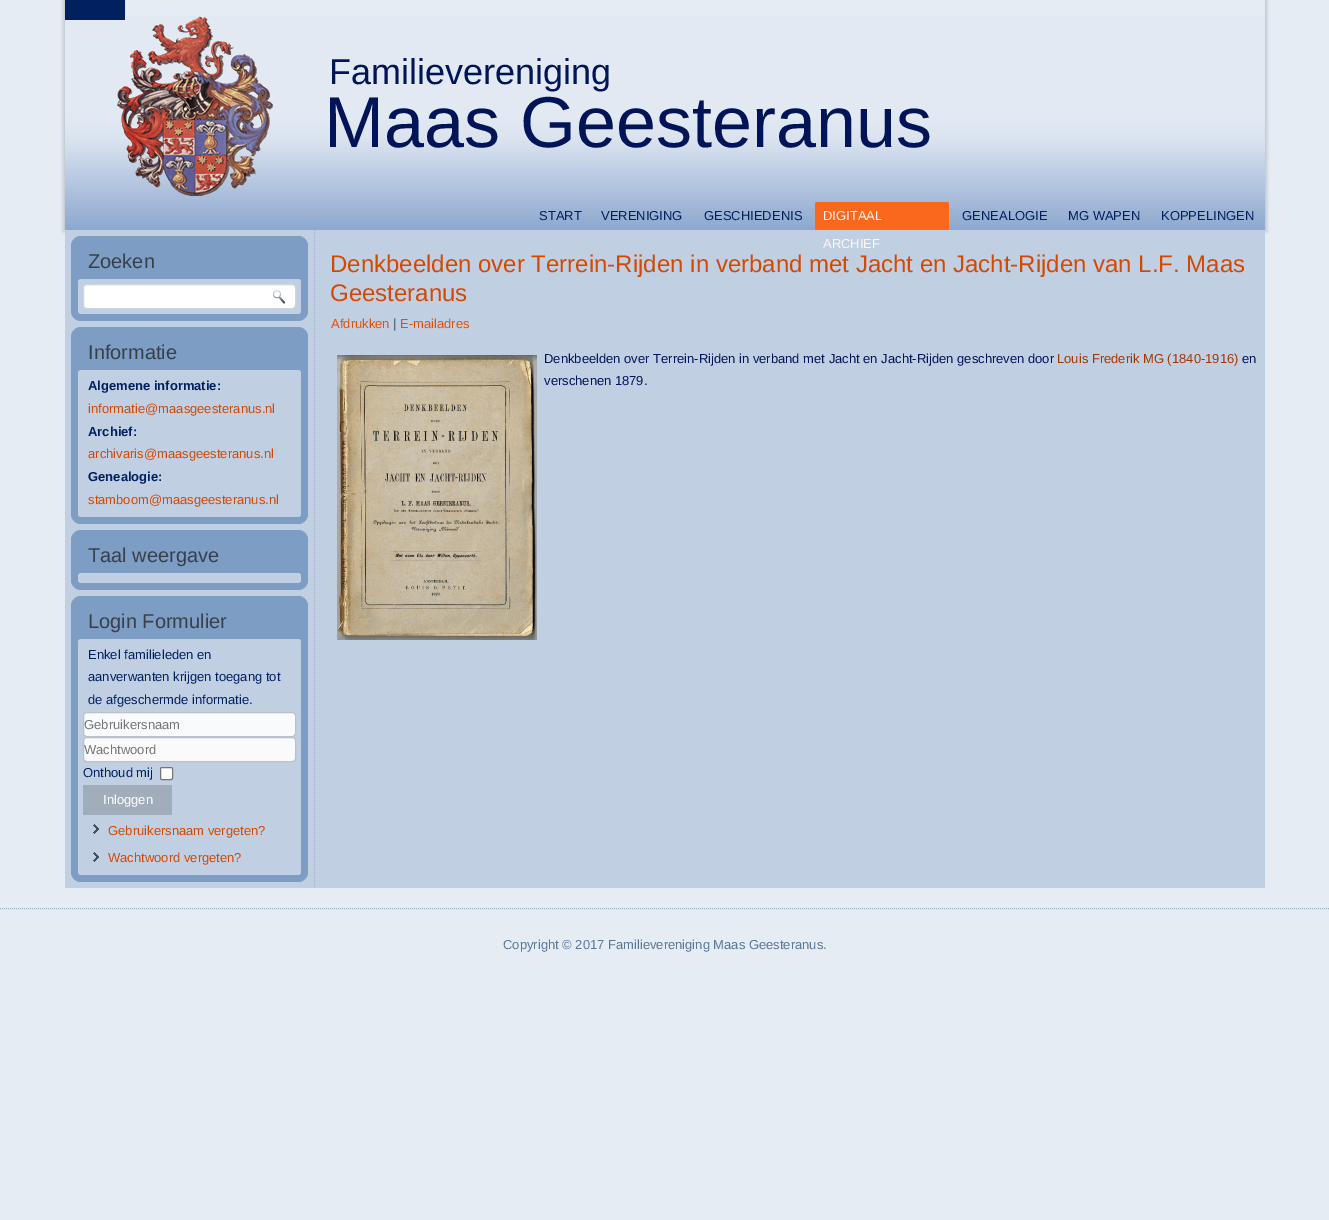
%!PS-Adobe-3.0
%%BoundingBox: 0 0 1329 1220
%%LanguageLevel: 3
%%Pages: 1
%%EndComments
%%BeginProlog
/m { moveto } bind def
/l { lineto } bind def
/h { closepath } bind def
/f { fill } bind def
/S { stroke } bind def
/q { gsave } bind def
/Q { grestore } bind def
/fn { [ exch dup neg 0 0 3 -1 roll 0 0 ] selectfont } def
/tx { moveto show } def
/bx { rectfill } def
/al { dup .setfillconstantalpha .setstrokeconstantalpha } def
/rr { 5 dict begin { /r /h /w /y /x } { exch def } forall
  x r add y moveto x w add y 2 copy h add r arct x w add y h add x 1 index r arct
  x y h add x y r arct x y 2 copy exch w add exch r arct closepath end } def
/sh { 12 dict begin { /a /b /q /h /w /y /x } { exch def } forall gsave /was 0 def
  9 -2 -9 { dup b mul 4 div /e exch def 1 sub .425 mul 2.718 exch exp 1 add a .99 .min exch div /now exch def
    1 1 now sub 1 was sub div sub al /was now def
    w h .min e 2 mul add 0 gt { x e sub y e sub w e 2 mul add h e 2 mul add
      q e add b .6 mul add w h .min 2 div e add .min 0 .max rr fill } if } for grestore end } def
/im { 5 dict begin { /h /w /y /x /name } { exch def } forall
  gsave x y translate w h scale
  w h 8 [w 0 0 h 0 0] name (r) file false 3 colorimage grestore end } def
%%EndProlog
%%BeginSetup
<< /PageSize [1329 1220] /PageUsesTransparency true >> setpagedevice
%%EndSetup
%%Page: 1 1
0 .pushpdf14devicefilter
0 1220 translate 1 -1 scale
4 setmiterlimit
0.902 0.925 0.957 setrgbcolor
0 0 1329 1220 bx
q
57 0 m 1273 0 l 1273 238 l 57 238 l h 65 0 m 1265 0 l 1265 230 l 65 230 l h eoclip newpath
0 setgray
63 -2 1204 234 0 1.5 0.15 sh
Q
(image0.raw) 65 16 1200 214 im
0 0.125 0.376 setrgbcolor
65 0 60 20 bx
/LiberationSans-Regular 36 fn
0 0.078 0.341 setrgbcolor
(Familievereniging) 329 84 tx
/LiberationSans-Regular 72 fn
(Maas Geesteranus) 324 147 tx
/LiberationSans-Regular 13 fn
0 0.125 0.376 setrgbcolor
(START) 539 220 tx
(image1.raw) 590 208 1 15 im
(VERENIGING) 601 220 tx
(image1.raw) 693 208 1 15 im
(GESCHIEDENIS) 704 220 tx
(image1.raw) 812 208 1 15 im
0.98 0.408 0.118 setrgbcolor
815 202 134 28 2 rr f
1 0.961 0.941 setrgbcolor
(DIGITAAL) 823 220 tx
0.757 0.812 0.89 setrgbcolor
65 230 1200 658 bx
1 0.961 0.941 setrgbcolor
(ARCHIEF) 823 248 tx
(image1.raw) 951 208 1 15 im
0 0.125 0.376 setrgbcolor
(GENEALOGIE) 962 220 tx
(image1.raw) 1057 208 1 15 im
(MG WAPEN) 1068 220 tx
(image1.raw) 1150 208 1 15 im
(KOPPELINGEN) 1161 220 tx
0.639 0.706 0.784 setrgbcolor
[1 1] 0 setdash
314.5 230 m 314.5 888 l S
0.494 0.616 0.769 setrgbcolor
71 236 237 85 10 rr f
/LiberationSans-Regular 20 fn
0.212 0.251 0.286 setrgbcolor
(Zoeken) 88 268 tx
0.757 0.812 0.89 setrgbcolor
78 279 223 35 3 rr f
1 setgray
83.5 284.5 212 24 3.5 rr q f Q
0.8 0.839 0.878 setrgbcolor
[] 0 setdash
S
(image2.raw) 272 290 14 14 im
0.494 0.616 0.769 setrgbcolor
71 327 237 197 10 rr f
0.212 0.251 0.286 setrgbcolor
(Informatie) 88 359 tx
0.757 0.812 0.89 setrgbcolor
78 370 223 147 3 rr f
/LiberationSans-Bold 13 fn
0 0.125 0.376 setrgbcolor
(Algemene informatie:) 88 390 tx
/LiberationSans-Regular 13 fn
0.824 0.286 0.016 setrgbcolor
(informatie@maasgeesteranus.nl) 88 413 tx
/LiberationSans-Bold 13 fn
0 0.125 0.376 setrgbcolor
(Archief:) 88 436 tx
/LiberationSans-Regular 13 fn
0.824 0.286 0.016 setrgbcolor
(archivaris@maasgeesteranus.nl) 88 458 tx
/LiberationSans-Bold 13 fn
0 0.125 0.376 setrgbcolor
(Genealogie:) 88 481 tx
/LiberationSans-Regular 13 fn
0.824 0.286 0.016 setrgbcolor
(stamboom@maasgeesteranus.nl) 88 504 tx
0.494 0.616 0.769 setrgbcolor
71 530 237 60 10 rr f
/LiberationSans-Regular 20 fn
0.212 0.251 0.286 setrgbcolor
(Taal weergave) 88 562 tx
0.757 0.812 0.89 setrgbcolor
78 573 223 10 3 rr f
0.494 0.616 0.769 setrgbcolor
71 596 237 286 10 rr f
0.212 0.251 0.286 setrgbcolor
(Login Formulier) 88 628 tx
0.757 0.812 0.89 setrgbcolor
78 639 223 236 3 rr f
/LiberationSans-Regular 13 fn
0 0.125 0.376 setrgbcolor
(Enkel familieleden en) 88 659 tx
(aanverwanten krijgen toegang tot) 88 681 tx
(de afgeschermde informatie.) 88 704 tx
0.976 0.98 0.984 setrgbcolor
83.5 712.5 212 24 3.5 rr q f Q
0.725 0.761 0.796 setrgbcolor
S
0.459 setgray
(Gebruikersnaam) 84 729 tx
0.976 0.98 0.984 setrgbcolor
83.5 737.5 212 24 3.5 rr q f Q
0.725 0.761 0.796 setrgbcolor
S
0.459 setgray
(Wachtwoord) 84 754 tx
0 0.125 0.376 setrgbcolor
(Onthoud mij) 83 777 tx
1 setgray
160.5 767.5 12 12 1.5 rr q f Q
0.463 setgray
S
0.631 0.678 0.729 setrgbcolor
83 785 89 30 bx
1 setgray
(Inloggen) 103 804 tx
(image3.raw) 93 824 6 10 im
0.824 0.286 0.016 setrgbcolor
(Gebruikersnaam vergeten?) 108 835 tx
(image3.raw) 93 852 6 10 im
(Wachtwoord vergeten?) 108 862 tx
/LiberationSans-Regular 24 fn
(Denkbeelden over Terrein-Rijden in verband met Jacht en Jacht-Rijden van L.F. Maas) 330 272 tx
(Geesteranus) 330 301 tx
/LiberationSans-Regular 13 fn
0.902 0.314 0.02 setrgbcolor
(Afdrukken) 331 328 tx
0.216 0.286 0.361 setrgbcolor
(|) 393 328 tx
0.902 0.314 0.02 setrgbcolor
(E-mailadres) 400 328 tx
(image4.raw) 337 355 200 285 im
0 0.078 0.341 setrgbcolor
(Denkbeelden over Terrein-Rijden in verband met Jacht en Jacht-Rijden geschreven door) 544 363 tx
0.627 0.216 0.012 setrgbcolor
(Louis Frederik MG \(1840-1916\)) 1057 363 tx
0 0.078 0.341 setrgbcolor
(en) 1242 363 tx
(verschenen 1879.) 544 385 tx
0.612 0.686 0.769 setrgbcolor
[1 1] 0 setdash
0 908.5 m 1329 908.5 l S
0.353 0.467 0.588 setrgbcolor
(Copyright © 2017 Familievereniging Maas Geesteranus.) 503 949 tx
.poppdf14devicefilter showpage
%%EOF
